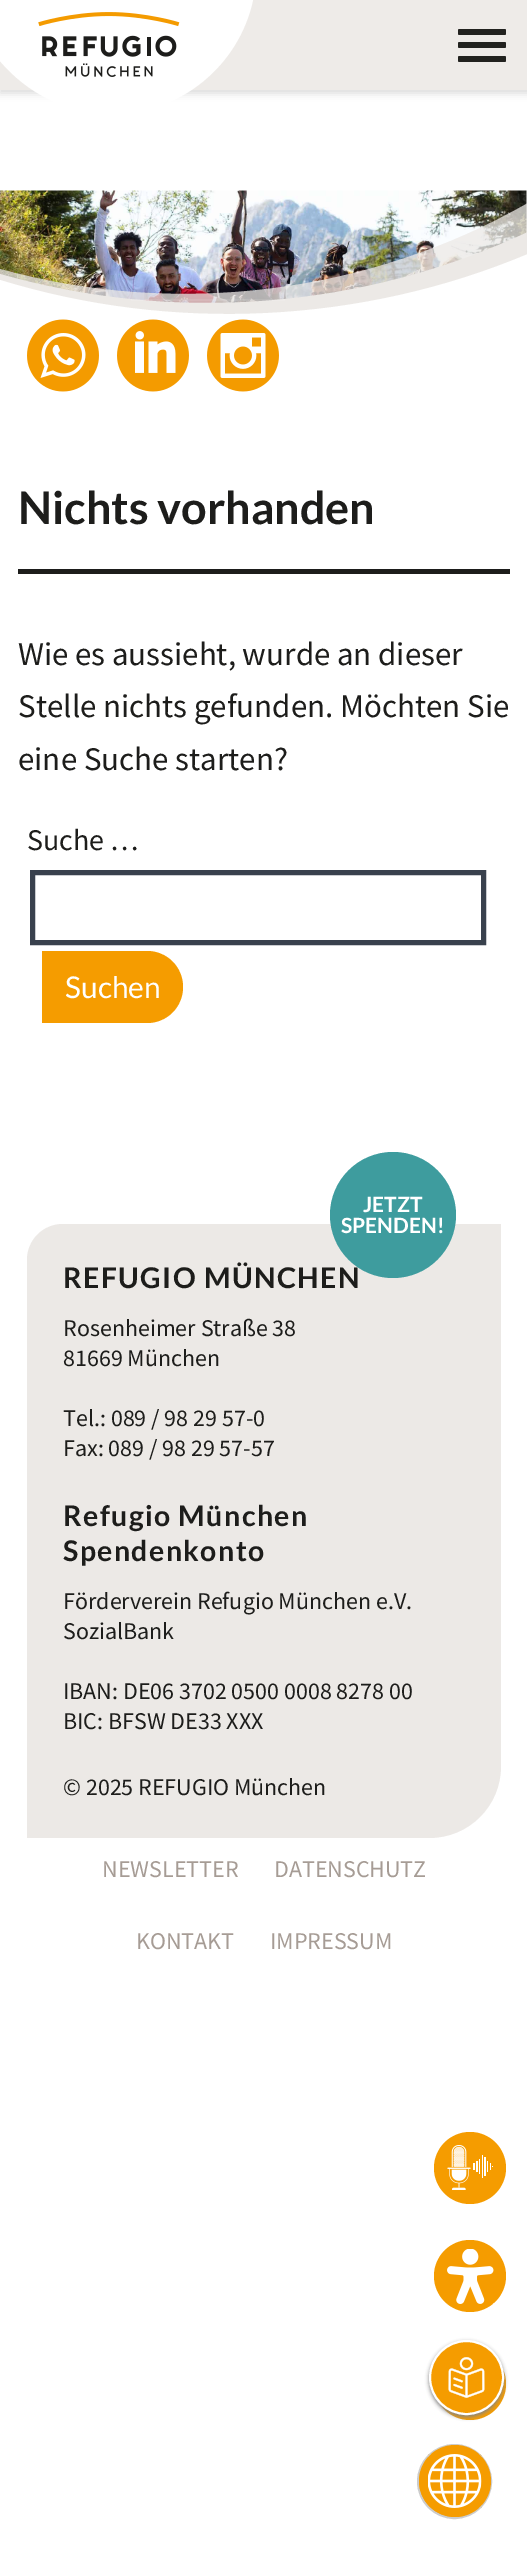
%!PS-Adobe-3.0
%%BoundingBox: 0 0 527 2563
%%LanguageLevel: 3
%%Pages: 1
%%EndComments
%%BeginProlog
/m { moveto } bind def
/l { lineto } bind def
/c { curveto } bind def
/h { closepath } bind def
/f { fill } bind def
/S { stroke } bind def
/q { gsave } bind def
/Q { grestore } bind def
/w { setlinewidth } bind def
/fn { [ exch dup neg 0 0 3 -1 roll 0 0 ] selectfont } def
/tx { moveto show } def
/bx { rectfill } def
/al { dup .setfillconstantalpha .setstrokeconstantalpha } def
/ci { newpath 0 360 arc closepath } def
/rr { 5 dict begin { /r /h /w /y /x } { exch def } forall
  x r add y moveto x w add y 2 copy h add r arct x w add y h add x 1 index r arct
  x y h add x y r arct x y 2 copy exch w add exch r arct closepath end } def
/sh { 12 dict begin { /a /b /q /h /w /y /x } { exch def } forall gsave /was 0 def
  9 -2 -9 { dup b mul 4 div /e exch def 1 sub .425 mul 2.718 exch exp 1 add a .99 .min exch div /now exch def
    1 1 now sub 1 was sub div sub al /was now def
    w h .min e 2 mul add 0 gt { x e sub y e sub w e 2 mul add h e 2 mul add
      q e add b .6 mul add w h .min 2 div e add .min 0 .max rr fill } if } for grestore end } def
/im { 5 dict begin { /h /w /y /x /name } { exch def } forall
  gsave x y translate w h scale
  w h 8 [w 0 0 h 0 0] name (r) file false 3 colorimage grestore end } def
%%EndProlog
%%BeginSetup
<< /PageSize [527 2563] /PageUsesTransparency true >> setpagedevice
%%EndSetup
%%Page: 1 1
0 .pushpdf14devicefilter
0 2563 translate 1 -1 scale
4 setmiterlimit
1 setgray
0 0 527 2563 bx
0 setgray
0 3 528 90 0 4 0.15 sh
0.933 0.922 0.91 setrgbcolor
0 0 527 90 bx
0.133 0.133 0.122 setrgbcolor
458 29 48 6 1.5 rr f
458 42 48 6 1.5 rr f
458 56 48 6 1.5 rr f
1 setgray
112 114 m 67 114 27 93 0 61 c 0 0 l 253 0 l 239 65 181 114 112 114 c h eofill
(image0.raw) 38 12 142 65 im
(image1.raw) 0 190 527 113 im
q
0 203 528 114 rectclip
0.75 al
0.925 0.914 0.902 setrgbcolor
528 320 m 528 203 l 369 294 177 318 0 269 c 0 320 l h f
1 al
0 274 m 0 320 l 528 320 l 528 232 l 364 309 174 324 0 274 c h f
1 setgray
0 280 m 0 320 l 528 320 l 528 254 l 362 324 172 333 0 280 c h f
Q
0.1 al
131 299 154 2 bx
1 al
(image2.raw) 27 319 72 73 im
(image3.raw) 117 319 72 73 im
(image4.raw) 207 319 72 73 im
0.114 0.114 0.106 setrgbcolor
18 569 492 5 bx
/Lato-Bold 45 fn
(Nichts vorhanden) 18 524 tx
/SourceSansPro-Regular 33 fn
(Wie es aussieht, wurde an dieser) 18 665 tx
(Stelle nichts gefunden. Möchten Sie) 18 717 tx
(eine Suche starten?) 18 770 tx
/SourceSansPro-Regular 30 fn
(Suche …) 27 850 tx
0.224 0.255 0.302 setrgbcolor
5 w
32.5 872.5 451 70 rectstroke
0.961 0.612 0 setrgbcolor
42 951 m 147 951 l 167 951 183 967 183 987 c 183 1007 167 1023 147 1023 c 42 1023 l h f
/Lato-Regular 30 fn
1 setgray
(Suchen) 65 998 tx
0.961 0.612 0 setrgbcolor
470 2168 36 ci f
(image5.raw) 447 2145 46 45 im
470 2276 36 ci f
(image6.raw) 447 2249 47 55 im
470 2384 36 ci f
0.518 setgray
429 2342 75 75 37.5 2 1 sh
0.961 0.612 0 setrgbcolor
466.5 2377.5 36.5 ci q f Q
1 setgray
2 w
S
(image7.raw) 448 2357 37 41 im
0.961 0.612 0 setrgbcolor
454.5 2481.5 36.5 ci q f Q
0.8 setgray
S
0.961 0.612 0 setrgbcolor
455 2481 36 ci f
(image8.raw) 428 2454 54 54 im
0.925 0.914 0.902 setrgbcolor
63 1224 m 501 1224 l 501 1766 l 501 1806 469 1838 429 1838 c 27 1838 l 27 1260 l 27 1240 43 1224 63 1224 c h f
/Lato-Bold 28.5 fn
0.114 0.114 0.106 setrgbcolor
63 1288 m 1.4 0 (REFUGIO MÜNCHEN) ashow
0.243 0.612 0.62 setrgbcolor
393 1215 63 ci f
/Lato-Bold 21 fn
1 setgray
(JETZT) 363 1212 tx
(SPENDEN!) 341 1233 tx
/SourceSansPro-Regular 24 fn
0.114 0.114 0.106 setrgbcolor
(Rosenheimer Straße 38) 63 1336 tx
(81669 München) 63 1366 tx
(Tel.: 089 / 98 29 57-0) 63 1426 tx
(Fax: 089 / 98 29 57-57) 63 1456 tx
/Lato-Bold 28.5 fn
63 1526 m 1.4 0 (Refugio München) ashow
63 1561 m 1.4 0 (Spendenkonto) ashow
/SourceSansPro-Regular 24 fn
(Förderverein Refugio München e.V.) 63 1609 tx
(SozialBank) 63 1639 tx
(IBAN: DE06 3702 0500 0008 8278 00) 63 1699 tx
(BIC: BFSW DE33 XXX) 63 1729 tx
(© 2025 REFUGIO München) 63 1795 tx
0.651 0.612 0.584 setrgbcolor
(NEWSLETTER) 102 1877 tx
(DATENSCHUTZ) 274 1877 tx
(KONTAKT) 136 1949 tx
(IMPRESSUM) 270 1949 tx
.poppdf14devicefilter showpage
%%EOF
